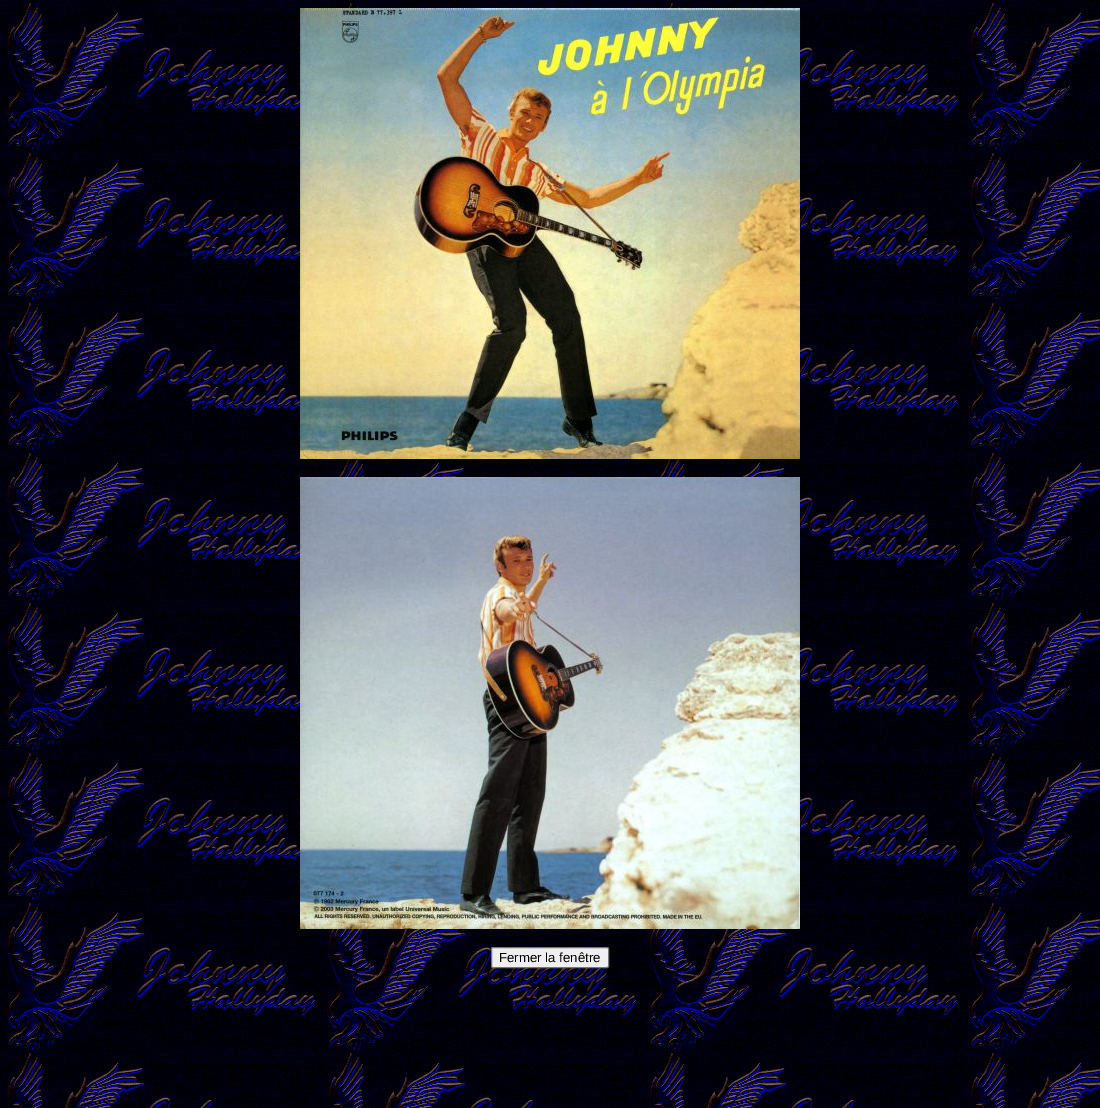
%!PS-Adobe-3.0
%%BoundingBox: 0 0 1100 1108
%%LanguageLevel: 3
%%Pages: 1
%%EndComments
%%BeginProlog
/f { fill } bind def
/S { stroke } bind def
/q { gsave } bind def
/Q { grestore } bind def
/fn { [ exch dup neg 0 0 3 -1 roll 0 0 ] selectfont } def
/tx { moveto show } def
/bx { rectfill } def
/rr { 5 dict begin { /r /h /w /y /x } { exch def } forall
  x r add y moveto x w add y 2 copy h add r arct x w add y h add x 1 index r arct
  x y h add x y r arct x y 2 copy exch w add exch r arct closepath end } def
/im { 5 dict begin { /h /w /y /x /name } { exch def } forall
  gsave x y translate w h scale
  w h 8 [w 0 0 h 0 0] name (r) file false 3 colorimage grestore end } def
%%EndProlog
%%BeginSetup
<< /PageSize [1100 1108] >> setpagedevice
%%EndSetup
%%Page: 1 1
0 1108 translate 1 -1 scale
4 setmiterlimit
1 setgray
0 0 1100 1108 bx
(image0.raw) 0 0 1100 1108 im
(image1.raw) 300 8 500 451 im
(image2.raw) 300 477 500 452 im
0.937 setgray
491.5 947.5 117 20 1.5 rr q f Q
0.463 setgray
S
/LiberationSans-Regular 13.25 fn
0 setgray
(Fermer la fenêtre) 499 962 tx
showpage
%%EOF
